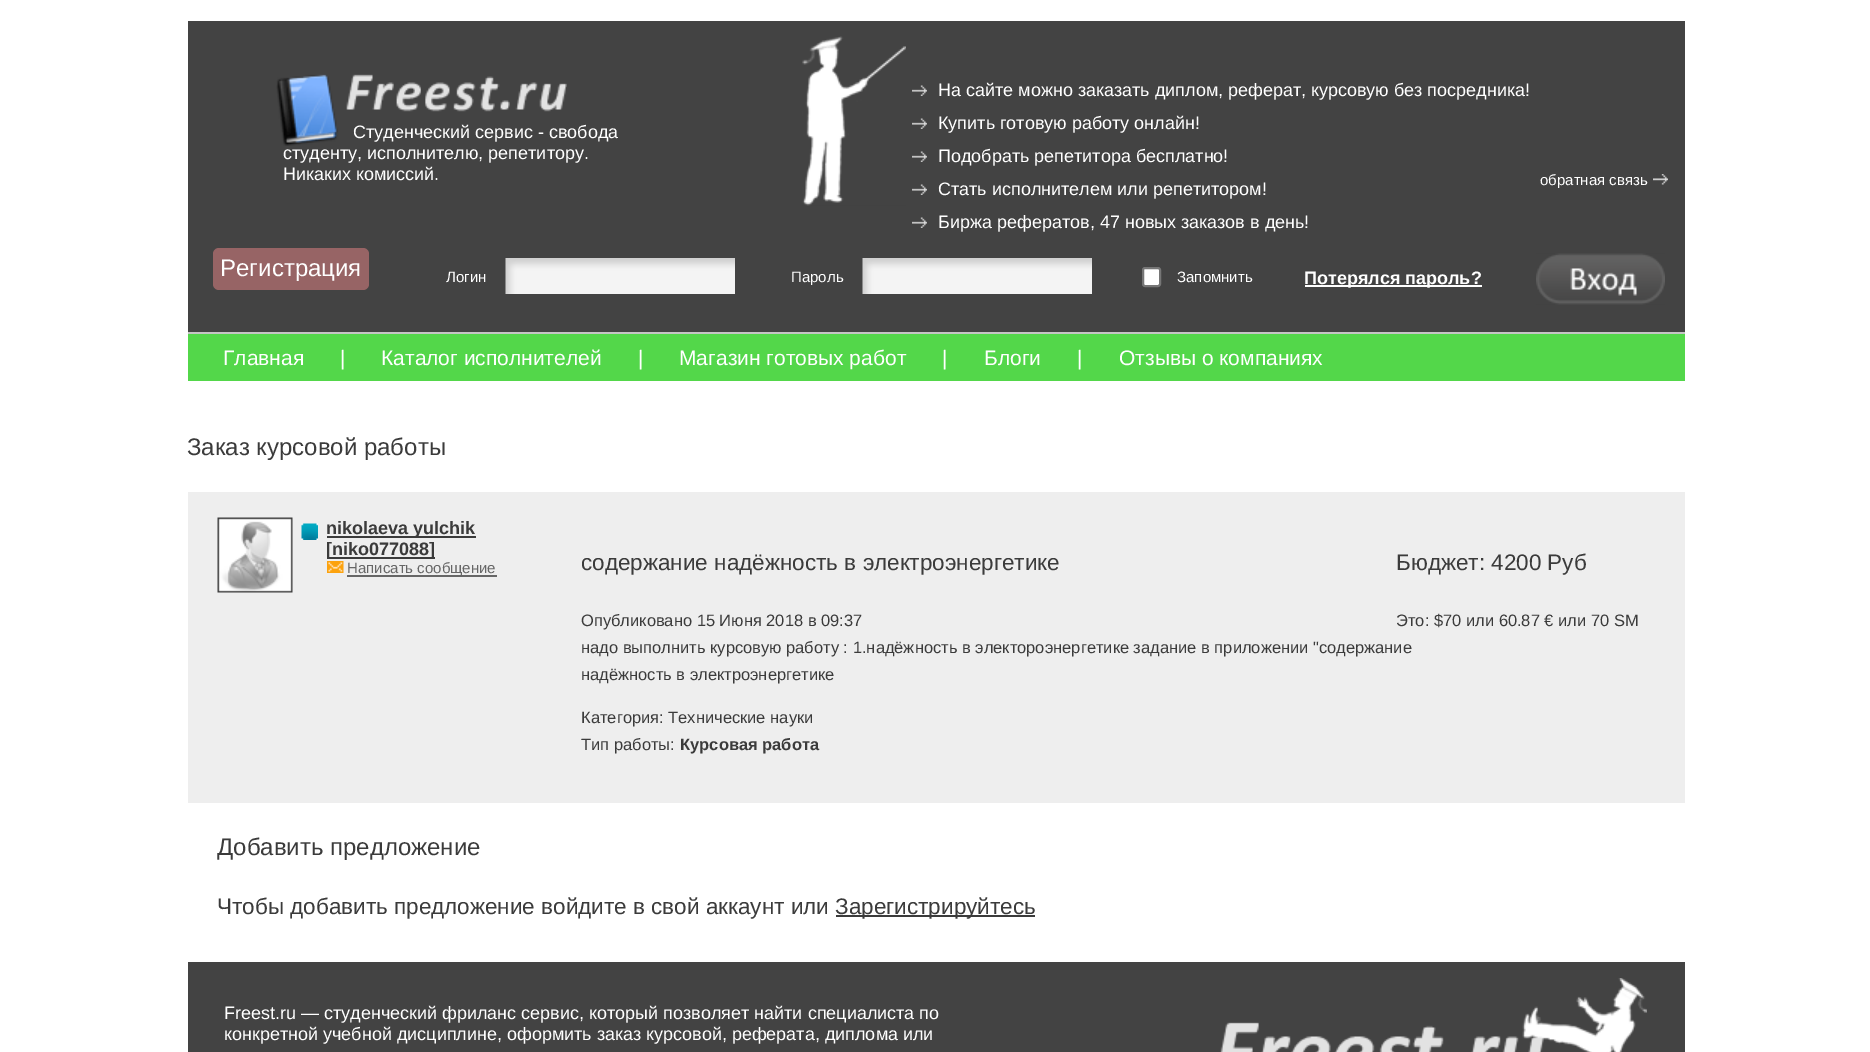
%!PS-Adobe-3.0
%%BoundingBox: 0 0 1870 1052
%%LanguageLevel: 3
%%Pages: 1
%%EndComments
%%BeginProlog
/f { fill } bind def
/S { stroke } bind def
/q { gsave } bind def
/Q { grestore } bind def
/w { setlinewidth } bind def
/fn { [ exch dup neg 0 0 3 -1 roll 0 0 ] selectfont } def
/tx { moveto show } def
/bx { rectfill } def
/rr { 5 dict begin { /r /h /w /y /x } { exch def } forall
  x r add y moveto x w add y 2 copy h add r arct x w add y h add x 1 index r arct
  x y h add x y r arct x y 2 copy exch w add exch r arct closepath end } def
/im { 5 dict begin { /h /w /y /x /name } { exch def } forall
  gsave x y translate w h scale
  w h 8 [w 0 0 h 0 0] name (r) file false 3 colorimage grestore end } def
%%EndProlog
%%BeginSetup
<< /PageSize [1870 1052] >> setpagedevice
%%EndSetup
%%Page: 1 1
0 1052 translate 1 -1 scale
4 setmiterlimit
1 setgray
0 0 1870 1052 bx
0.263 setgray
188 21 1497 311 bx
(image0.raw) 276 74 291 72 im
/LiberationSans-Regular 18 fn
1 setgray
(Студенческий сервис - свобода) 353 138 tx
(студенту, исполнителю, репетитору.) 283 159 tx
(Никаких комиссий.) 283 180 tx
(image1.raw) 802 36 104 170 im
(image2.raw) 912 85 15 11 im
(На сайте можно заказать диплом, реферат, курсовую без посредника!) 938 96 tx
(image2.raw) 912 118 15 11 im
(Купить готовую работу онлайн!) 938 129 tx
(image2.raw) 912 151 15 11 im
(Подобрать репетитора бесплатно!) 938 162 tx
(image2.raw) 912 184 15 11 im
(Стать исполнителем или репетитором!) 938 195 tx
(image2.raw) 912 217 15 11 im
(Биржа рефератов, 47 новых заказов в день!) 938 228 tx
/LiberationSans-Regular 15 fn
(обратная связь) 1540 185 tx
(image3.raw) 1653 174 15 11 im
0.592 0.392 0.396 setrgbcolor
213 248 156 42 6 rr f
/LiberationSans-Regular 24 fn
1 setgray
(Регистрация) 220 276 tx
/LiberationSans-Regular 15 fn
(Логин) 446 282 tx
(image4.raw) 505 258 230 36 im
(Пароль) 791 282 tx
(image4.raw) 862 258 230 36 im
1143 268 17 18 2 rr q f Q
0.463 setgray
2 w
S
1 setgray
(Запомнить) 1177 282 tx
1305 285 177 2 bx
/LiberationSans-Bold 18 fn
(Потерялся пароль?) 1304 284 tx
(image5.raw) 1536 253 129 52 im
0.325 0.843 0.29 setrgbcolor
188 334 1497 47 bx
0.773 setgray
188 332 1497 2 bx
/LiberationSans-Regular 21 fn
1 setgray
(Главная) 223 365 tx
(|) 340 365 tx
(Каталог исполнителей) 381 365 tx
(|) 638 365 tx
(Магазин готовых работ) 679 365 tx
(|) 942 365 tx
(Блоги) 984 365 tx
(|) 1077 365 tx
(Отзывы о компаниях) 1119 365 tx
/LiberationSans-Regular 24 fn
0.231 setgray
(Заказ курсовой работы) 187 455 tx
0.933 setgray
188 492 1497 311 bx
(image6.raw) 301 523 17 17 im
(image7.raw) 217 517 76 76 im
0.231 setgray
327 536 149 2 bx
/LiberationSans-Bold 18 fn
(nikolaeva yulchik) 326 534 tx
327 557 108 2 bx
([niko077088]) 326 555 tx
(image8.raw) 327 561 17 12 im
0.4 setgray
347 575 150 2 bx
/LiberationSans-Regular 15 fn
(Написать сообщение) 347 573 tx
/LiberationSans-Regular 22.5 fn
0.231 setgray
(содержание надёжность в электроэнергетике) 581 570 tx
/LiberationSans-Regular 16.5 fn
(Опубликовано 15 Июня 2018 в 09:37) 581 626 tx
/LiberationSans-Regular 22.5 fn
(Бюджет: 4200 Руб) 1396 570 tx
/LiberationSans-Regular 16.5 fn
(Это: $70 или 60.87 € или 70 SM) 1396 626 tx
(надо выполнить курсовую работу : 1.надёжность в электороэнергетике задание в приложении "содержание) 581 653 tx
(надёжность в электроэнергетике) 581 680 tx
(Категория: Технические науки) 581 723 tx
(Тип работы:) 581 750 tx
/LiberationSans-Bold 16.5 fn
(Курсовая работа) 680 750 tx
/LiberationSans-Regular 24 fn
(Добавить предложение) 217 855 tx
/LiberationSans-Regular 22.5 fn
(Чтобы добавить предложение войдите в свой аккаунт или) 217 914 tx
836 915 199 2 bx
(Зарегистрируйтесь) 835 914 tx
0.263 setgray
188 962 1497 90 bx
/LiberationSans-Regular 18 fn
1 setgray
(Freest.ru — студенческий фриланс сервис, который позволяет найти специалиста по) 224 1019 tx
(конкретной учебной дисциплине, оформить заказ курсовой, реферата, диплома или) 224 1040 tx
(image9.raw) 1220 978 427 74 im
showpage
%%EOF
